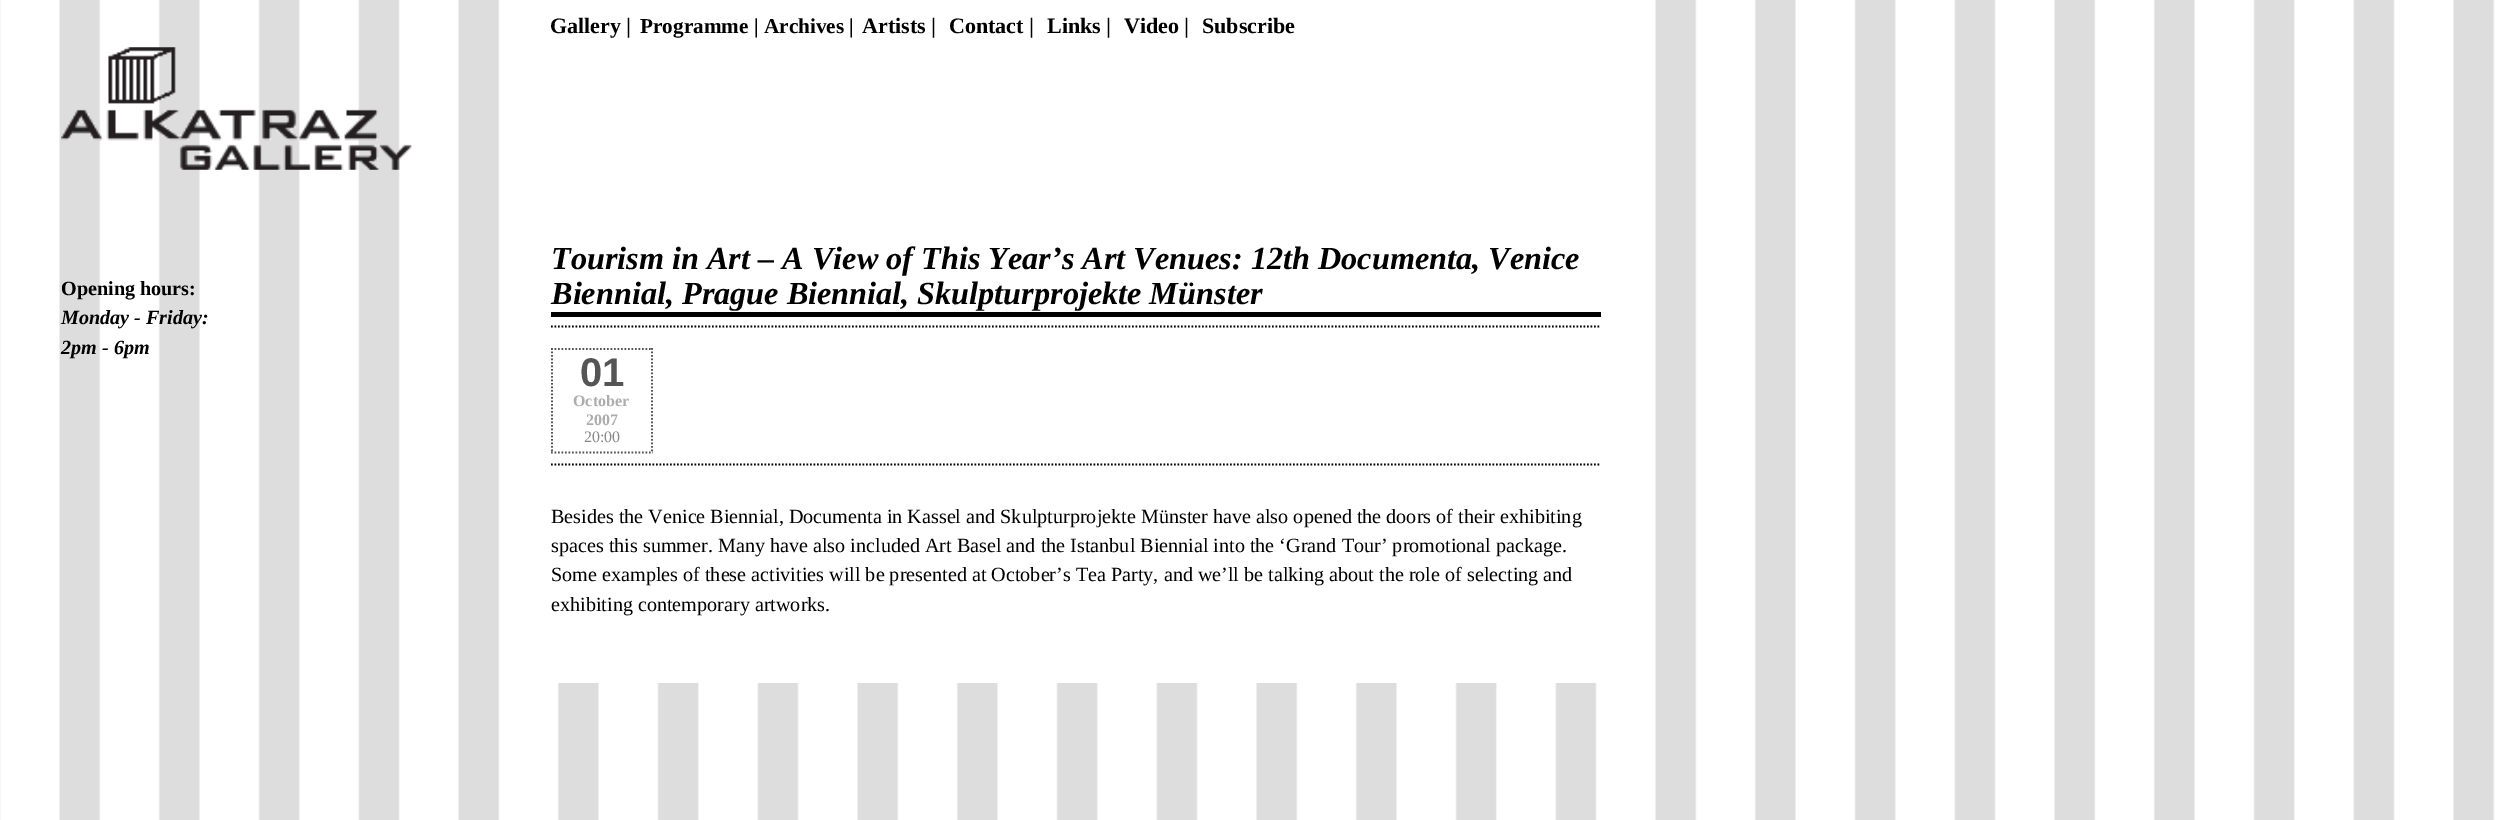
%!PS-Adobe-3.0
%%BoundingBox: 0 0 2495 820
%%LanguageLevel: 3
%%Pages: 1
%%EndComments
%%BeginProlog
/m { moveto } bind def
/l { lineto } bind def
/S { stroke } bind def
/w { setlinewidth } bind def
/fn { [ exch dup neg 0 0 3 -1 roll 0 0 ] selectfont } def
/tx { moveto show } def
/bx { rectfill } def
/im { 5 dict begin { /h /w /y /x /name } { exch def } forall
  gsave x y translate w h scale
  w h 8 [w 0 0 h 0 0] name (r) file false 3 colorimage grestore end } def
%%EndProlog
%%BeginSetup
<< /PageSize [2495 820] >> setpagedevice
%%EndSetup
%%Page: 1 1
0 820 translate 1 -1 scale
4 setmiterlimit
1 setgray
0 0 2495 820 bx
(image0.raw) 0 0 2495 820 im
557 0 1040 683 bx
/LiberationSerif-Bold 22 fn
0 setgray
(Gallery |) 550 33 tx
/LiberationSerif-Bold 21.25 fn
(Programme | Archives |) 640 33 tx
/LiberationSerif-Bold 22 fn
(Artists |) 862 33 tx
(Contact |) 949 33 tx
(Links |) 1047 33 tx
(Video |) 1124 33 tx
(Subscribe) 1202 33 tx
(image1.raw) 61 47 351 123 im
/LiberationSerif-Bold 20.15 fn
(Opening hours:) 61 295 tx
/LiberationSerif-BoldItalic 20.15 fn
(Monday - Friday:) 61 324 tx
(2pm - 6pm) 61 354 tx
551 312 1050 5 bx
/LiberationSerif-BoldItalic 32.25 fn
(Tourism in Art – A View of This Year’s Art Venues: 12th Documenta, Venice) 551 269 tx
(Biennial, Prague Biennial, Skulpturprojekte Münster) 551 304 tx
1.8 w
[1.75 1.75] 0 setdash
551 326.5 m 1601 326.5 l S
0.333 setgray
551 349 m 653 349 l S
652 348 m 652 453 l S
551 452.5 m 653 452.5 l S
552 348 m 552 453 l S
/LiberationSans-Bold 40 fn
(01) 580 386 tx
/LiberationSerif-Bold 16 fn
0.675 setgray
(October) 573 406 tx
(2007) 586 425 tx
/LiberationSerif-Regular 16 fn
0.533 setgray
(20:00) 584 442 tx
0 setgray
551 464.5 m 1601 464.5 l S
/LiberationSerif-Regular 20.15 fn
(Besides the Venice Biennial, Documenta in Kassel and Skulpturprojekte Münster have also opened the doors of their exhibiting) 551 523 tx
(spaces this summer. Many have also included Art Basel and the Istanbul Biennial into the ‘Grand Tour’ promotional package.) 551 552 tx
(Some examples of these activities will be presented at October’s Tea Party, and we’ll be talking about the role of selecting and) 551 581 tx
(exhibiting contemporary artworks.) 551 611 tx
showpage
%%EOF
